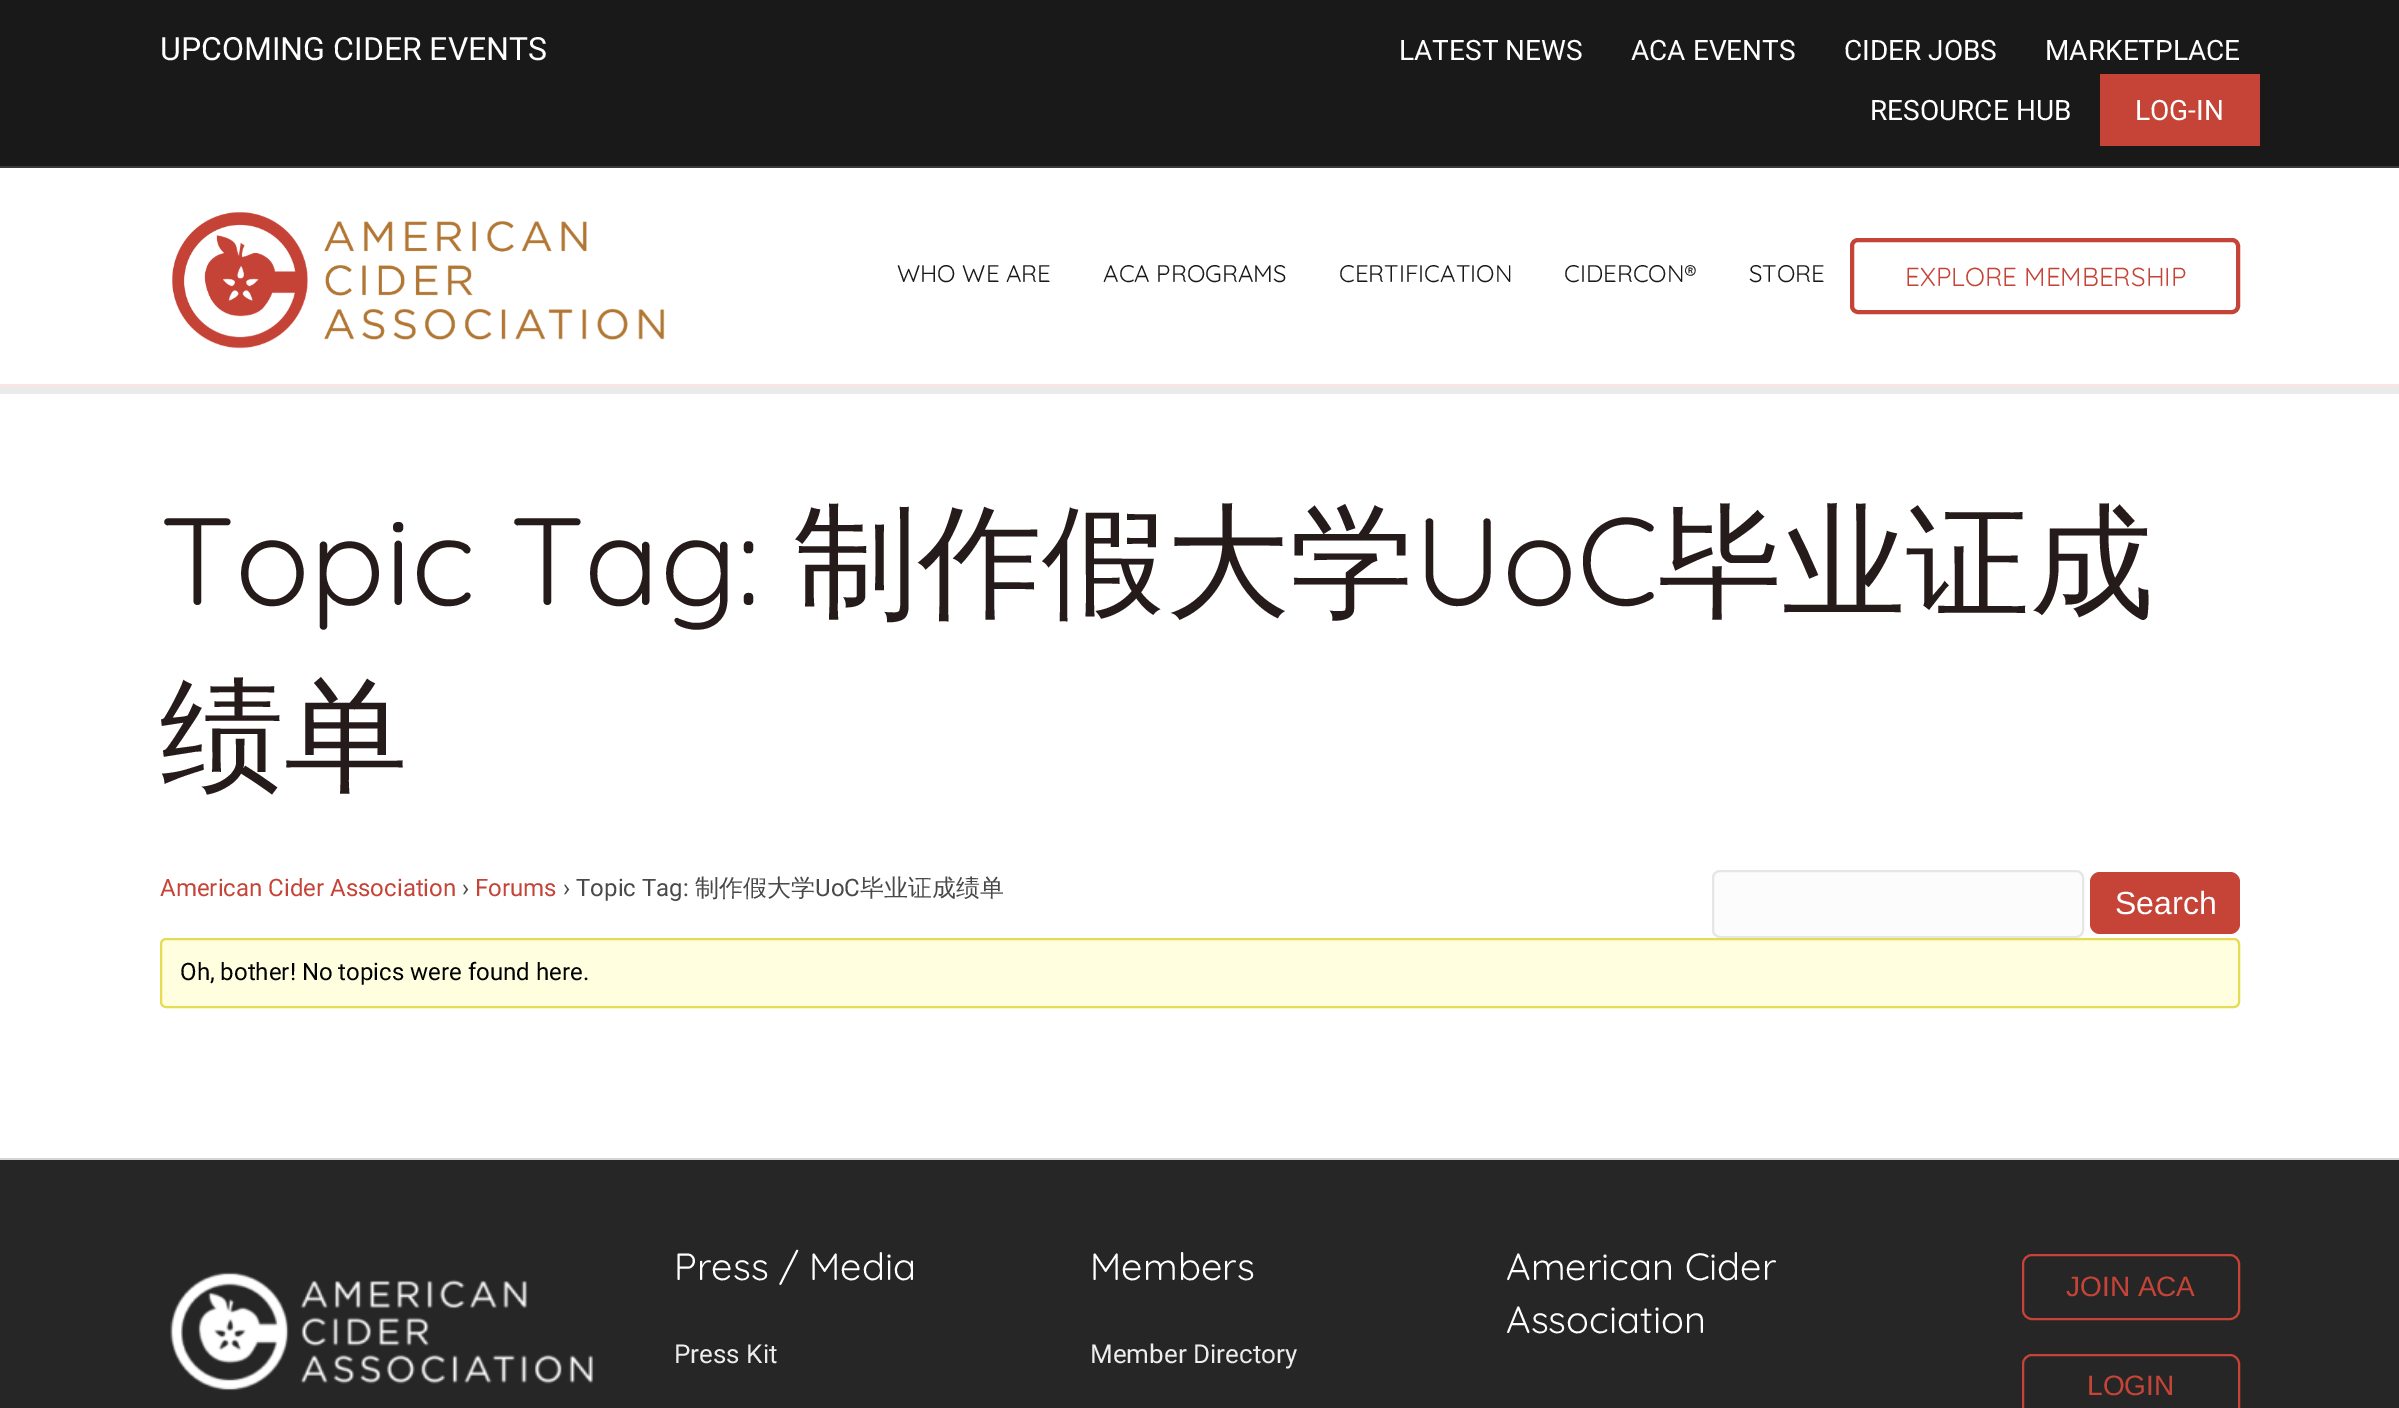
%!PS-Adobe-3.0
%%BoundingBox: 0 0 2399 1408
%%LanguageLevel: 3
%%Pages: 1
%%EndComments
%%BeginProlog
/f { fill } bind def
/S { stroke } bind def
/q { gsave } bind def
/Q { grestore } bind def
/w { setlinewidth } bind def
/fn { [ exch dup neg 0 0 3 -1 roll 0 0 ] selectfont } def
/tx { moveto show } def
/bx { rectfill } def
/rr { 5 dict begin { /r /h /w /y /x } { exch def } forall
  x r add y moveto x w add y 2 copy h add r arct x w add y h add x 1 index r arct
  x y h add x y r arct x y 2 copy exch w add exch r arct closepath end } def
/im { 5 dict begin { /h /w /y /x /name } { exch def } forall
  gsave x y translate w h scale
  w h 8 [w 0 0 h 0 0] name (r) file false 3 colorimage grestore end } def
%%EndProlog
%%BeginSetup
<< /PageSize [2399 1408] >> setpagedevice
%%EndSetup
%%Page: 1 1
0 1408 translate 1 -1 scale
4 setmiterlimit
0.918 setgray
0 0 2399 1408 bx
0.098 setgray
0 0 2399 166 bx
0.227 setgray
0 166 2399 2 bx
/Roboto-Regular 32 fn
1 setgray
(UPCOMING CIDER EVENTS) 160 60 tx
/Roboto-Regular 28 fn
(LATEST NEWS) 1399 60 tx
(ACA EVENTS) 1631 60 tx
(CIDER JOBS) 1844 60 tx
(MARKETPLACE) 2045 60 tx
(RESOURCE HUB) 1870 120 tx
0.773 0.267 0.216 setrgbcolor
2100 74 160 72 bx
1 setgray
(LOG-IN) 2135 120 tx
0 168 2399 216 bx
0.984 0.894 0.894 setrgbcolor
0 384 2399 2 bx
(image0.raw) 172 212 493 137 im
/Quicksand-Light 24 fn
0.098 setgray
(WHO WE ARE) 897 282 tx
(ACA PROGRAMS) 1103 282 tx
(CERTIFICATION) 1339 282 tx
(CIDERCON®) 1564 282 tx
(STORE) 1749 282 tx
0.769 0.271 0.216 setrgbcolor
4 w
1852 240 386 72 6 rr S
/Quicksand-Light 26 fn
0.773 0.267 0.216 setrgbcolor
(EXPLORE MEMBERSHIP) 1905 286 tx
1 setgray
0 394 2399 764 bx
/Quicksand-Light 124 fn
0.145 0.106 0.102 setrgbcolor
(Topic Tag:) 160 605 tx
/WenQuanYiZenHei-Medium 124 fn
(制作假大学) 794 605 tx
/Quicksand-Light 124 fn
(UoC) 1414 605 tx
/WenQuanYiZenHei-Medium 124 fn
(毕业证成) 1658 605 tx
(绩单) 160 779 tx
/Roboto-Regular 24 fn
0.773 0.267 0.216 setrgbcolor
(American Cider Association) 160 896 tx
0.286 setgray
(›) 462 896 tx
0.773 0.267 0.216 setrgbcolor
(Forums) 475 896 tx
0.286 setgray
(› Topic Tag:) 563 896 tx
/WenQuanYiZenHei-Medium 24 fn
(制作假大学) 695 896 tx
/Roboto-Regular 24 fn
(UoC) 815 896 tx
/WenQuanYiZenHei-Medium 24 fn
(毕业证成绩单) 860 896 tx
0.988 setgray
1713 871 370 66 7 rr q f Q
0.902 setgray
2 w
S
0.773 0.267 0.216 setrgbcolor
2090 872 150 62 10 rr f
/LiberationSans-Regular 32 fn
1 setgray
(Search) 2115 914 tx
1 1 0.878 setrgbcolor
161 939 2078 68 5 rr q f Q
0.902 0.859 0.333 setrgbcolor
S
/Roboto-Regular 24 fn
0 setgray
(Oh, bother! No topics were found here.) 180 980 tx
0.149 setgray
0 1160 2399 248 bx
0.835 setgray
0 1158 2399 2 bx
(image1.raw) 170 1272 424 119 im
/Quicksand-Light 38 fn
1 setgray
(Press / Media) 674 1280 tx
/Roboto-Regular 26 fn
0.929 setgray
(Press Kit) 674 1363 tx
/Quicksand-Light 38 fn
1 setgray
(Members) 1090 1280 tx
/Roboto-Regular 26 fn
0.929 setgray
(Member Directory) 1090 1363 tx
/Quicksand-Light 38 fn
1 setgray
(American Cider) 1506 1280 tx
(Association) 1506 1333 tx
0.773 0.267 0.216 setrgbcolor
2023 1255 216 64 9 rr S
/LiberationSans-Regular 28 fn
(JOIN ACA) 2066 1296 tx
2023 1355 216 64 9 rr S
(LOGIN) 2087 1395 tx
showpage
%%EOF
